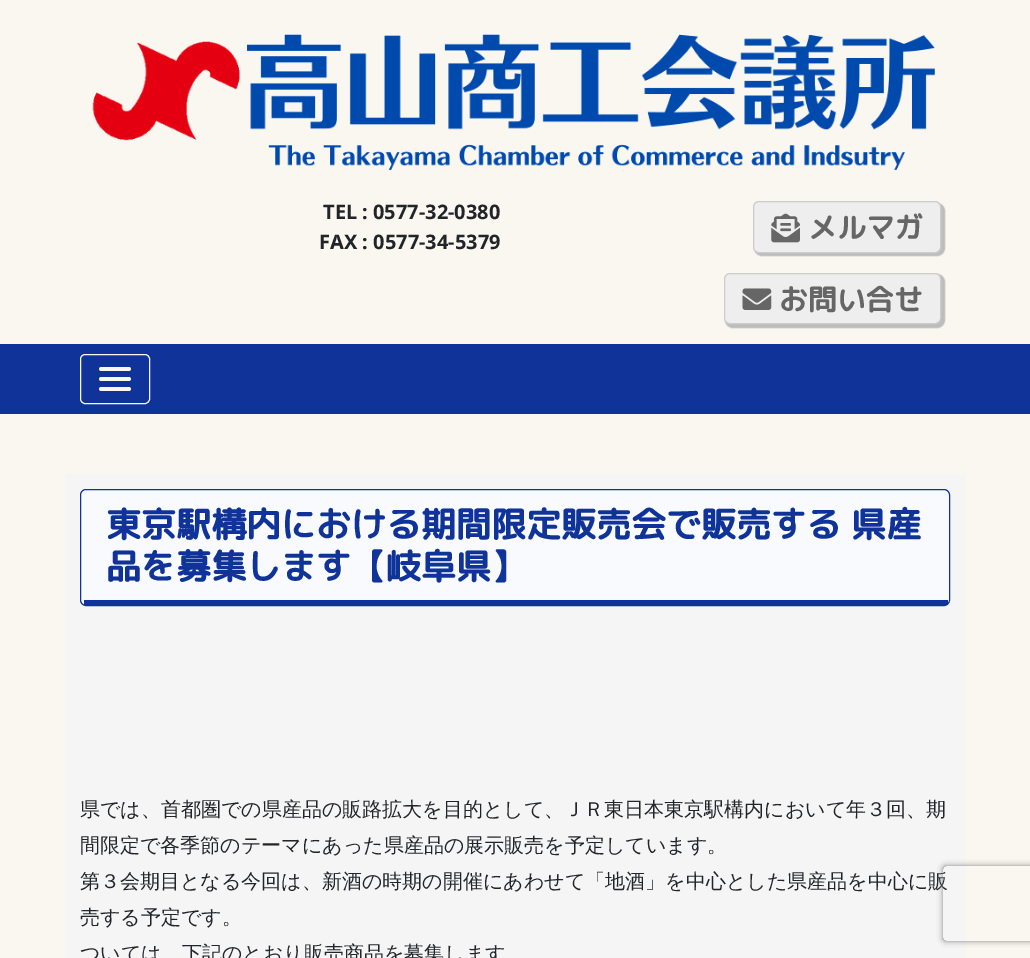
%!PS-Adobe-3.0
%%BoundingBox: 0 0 1030 958
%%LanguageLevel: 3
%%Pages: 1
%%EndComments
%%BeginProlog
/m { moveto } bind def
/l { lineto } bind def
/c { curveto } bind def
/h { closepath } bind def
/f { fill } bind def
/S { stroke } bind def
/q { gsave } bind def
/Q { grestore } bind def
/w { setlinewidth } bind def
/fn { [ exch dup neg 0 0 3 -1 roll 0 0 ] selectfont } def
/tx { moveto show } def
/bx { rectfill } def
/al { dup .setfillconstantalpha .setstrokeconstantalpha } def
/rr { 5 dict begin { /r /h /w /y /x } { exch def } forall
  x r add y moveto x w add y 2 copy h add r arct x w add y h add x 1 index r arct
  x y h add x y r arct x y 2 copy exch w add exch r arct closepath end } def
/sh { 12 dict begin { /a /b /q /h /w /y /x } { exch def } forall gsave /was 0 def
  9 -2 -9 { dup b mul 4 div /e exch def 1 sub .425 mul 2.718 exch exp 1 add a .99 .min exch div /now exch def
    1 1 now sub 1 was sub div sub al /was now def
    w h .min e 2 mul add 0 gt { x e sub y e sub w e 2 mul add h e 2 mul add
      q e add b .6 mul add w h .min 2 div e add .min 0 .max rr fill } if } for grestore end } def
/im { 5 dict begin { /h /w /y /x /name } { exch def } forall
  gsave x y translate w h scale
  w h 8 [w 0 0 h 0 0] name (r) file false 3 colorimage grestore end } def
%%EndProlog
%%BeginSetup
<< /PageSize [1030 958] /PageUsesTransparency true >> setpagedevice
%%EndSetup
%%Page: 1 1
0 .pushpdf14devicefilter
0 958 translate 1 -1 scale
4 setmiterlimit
0.98 0.969 0.941 setrgbcolor
0 0 1030 958 bx
(image0.raw) 92 34 843 137 im
/NotoSans-Bold 20 fn
0.129 0.145 0.161 setrgbcolor
(TEL : 0577-32-0380) 323 219 tx
(FAX : 0577-34-5379) 319 249 tx
0.733 setgray
754 203 191 53 8 0.5 1 sh
0.933 setgray
753.5 201.5 187 51 5.5 rr q f Q
0.8 setgray
S
(image1.raw) 771 213 29 30 im
/RoundedMplus1c-Bold 28.75 fn
0.4 setgray
(メルマガ) 808 238 tx
0.733 setgray
725 274 220 54 8 0.5 1 sh
0.933 setgray
724.5 273.5 216 50 5.5 rr q f Q
0.8 setgray
S
(image2.raw) 742 288 30 22 im
0.4 setgray
(お問い合せ) 779 310 tx
0.063 0.2 0.6 setrgbcolor
0 344 1030 70 bx
0.98 0.969 0.941 setrgbcolor
80.5 354.5 69 49 4.5 rr S
3.8 w
1 setlinecap
101 369 m 129 369 l 101 379 m 129 379 l 101 389 m 129 389 l S
0.961 setgray
65 474 900 484 bx
0.973 0.98 0.996 setrgbcolor
80.5 489.5 869 116 5.5 rr q f Q
0.063 0.2 0.6 setrgbcolor
1 w
0 setlinecap
S
84 600 864 5 bx
/RoundedMplus1c-Bold 35 fn
(東京駅構内における期間限定販売会で販売する 県産) 106 537 tx
(品を募集します【岐阜県】) 106 579 tx
/WenQuanYiZenHei-Medium 20 fn
0.129 0.145 0.161 setrgbcolor
(県では、首都圏での県産品の販路拡大を目的として、ＪＲ東日本東京駅構内において年３回、期) 80 816 tx
(間限定で各季節のテーマにあった県産品の展示販売を予定しています。) 80 852 tx
(第３会期目となる今回は、新酒の時期の開催にあわせて「地酒」を中心とした県産品を中心に販) 80 888 tx
(売する予定です。) 80 924 tx
(ついては、下記のとおり販売商品を募集します) 80 960 tx
q
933 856 m 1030 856 l 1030 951 l 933 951 l h 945.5 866 m 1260.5 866 l 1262 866 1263 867 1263 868.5 c 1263 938.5 l 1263 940 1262 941 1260.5 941 c 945.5 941 l 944 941 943 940 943 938.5 c 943 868.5 l 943 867 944 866 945.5 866 c h eoclip newpath
0.502 setgray
943 866 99 75 2.5 3 1 sh
Q
.poppdf14devicefilter showpage
%%EOF
